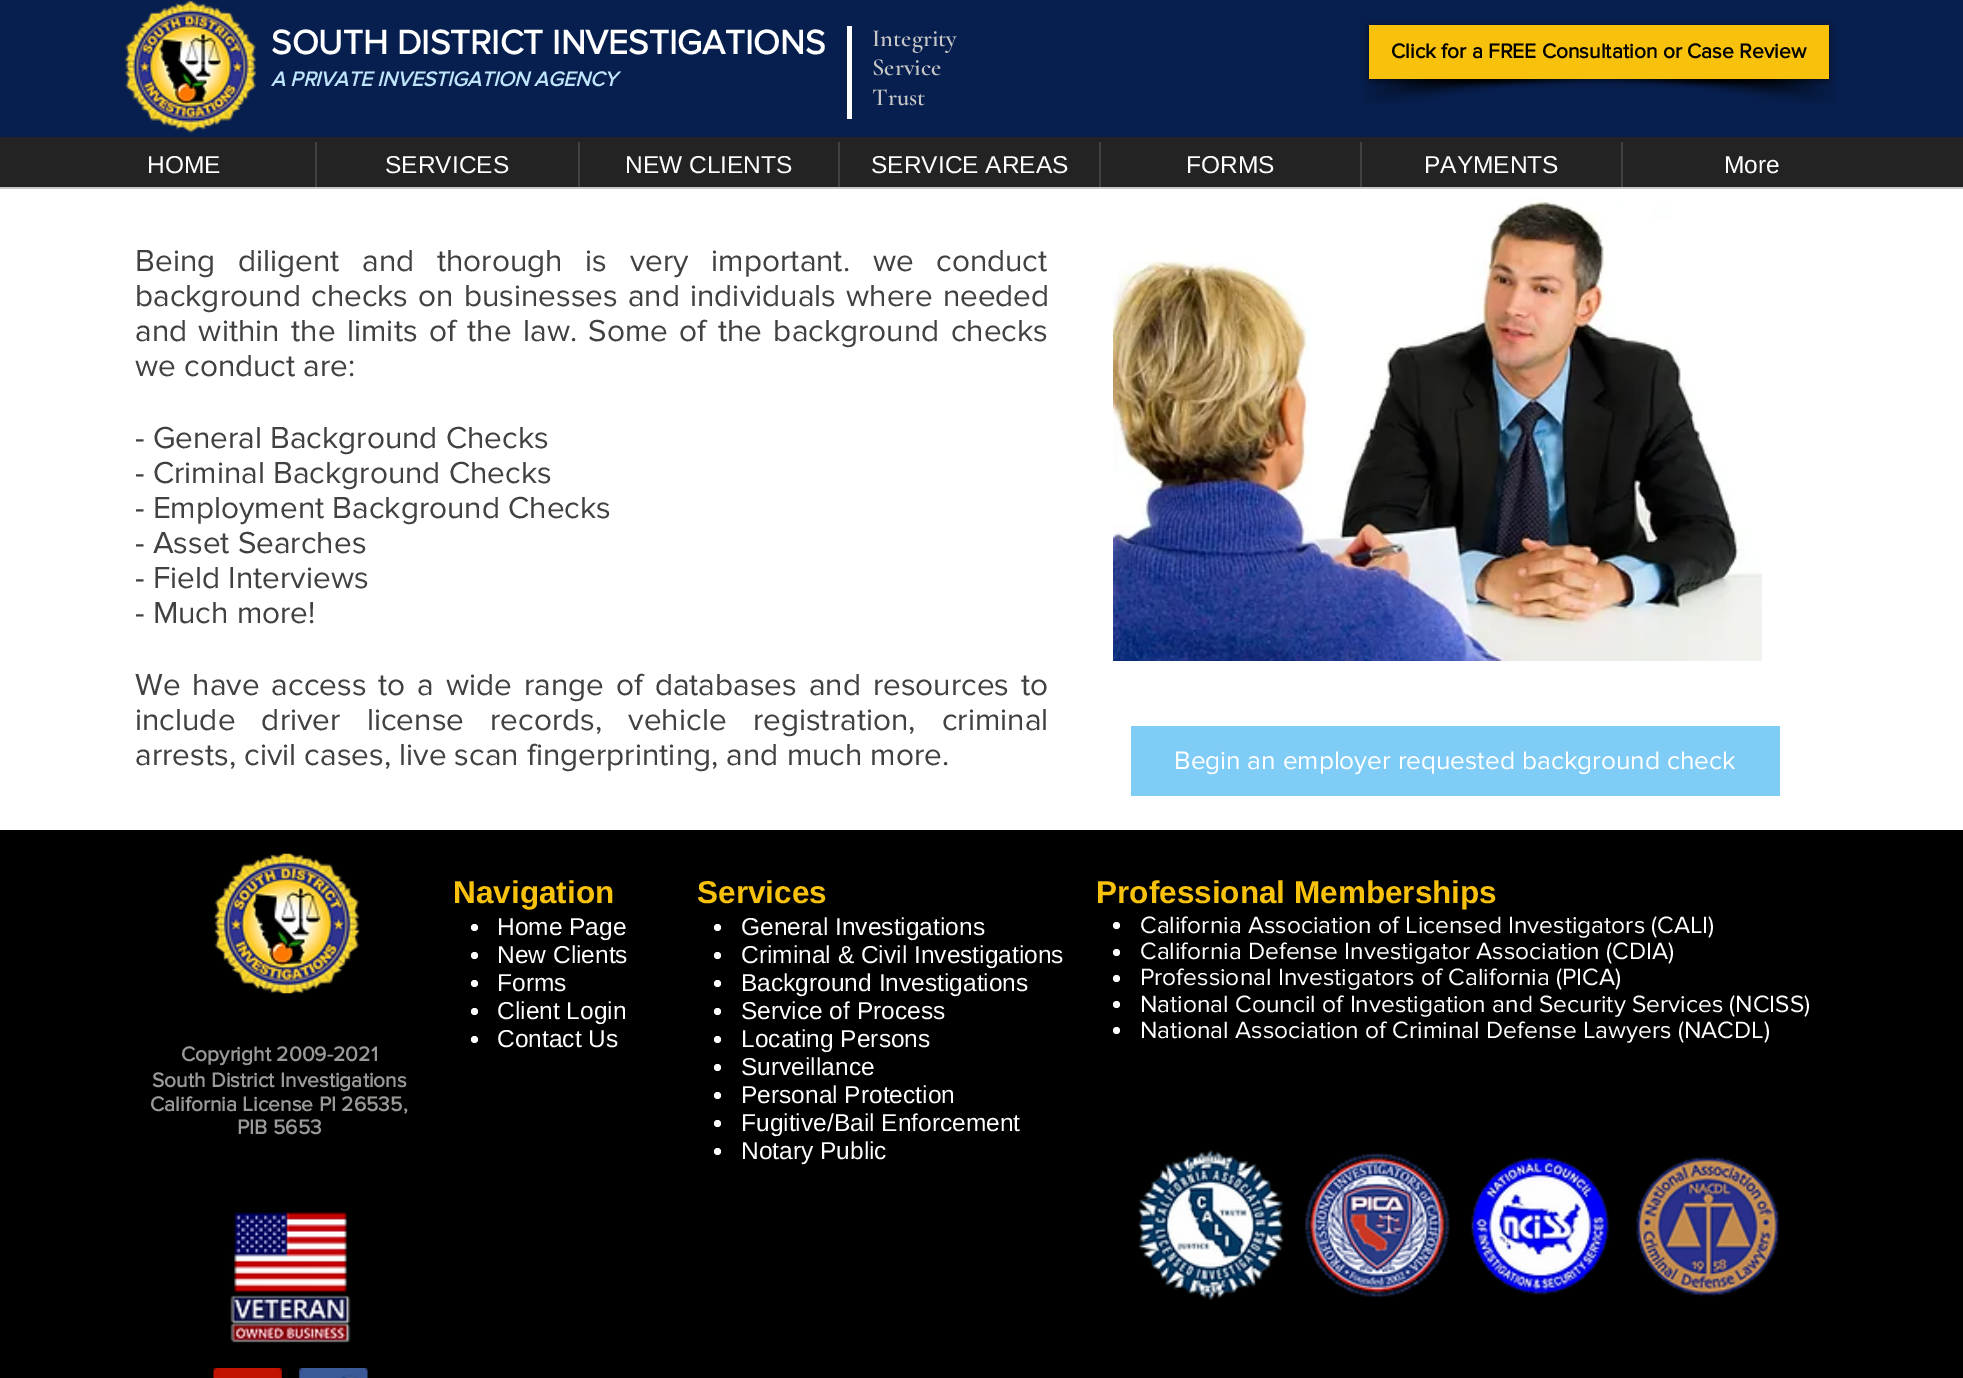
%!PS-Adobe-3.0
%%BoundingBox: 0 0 1963 1378
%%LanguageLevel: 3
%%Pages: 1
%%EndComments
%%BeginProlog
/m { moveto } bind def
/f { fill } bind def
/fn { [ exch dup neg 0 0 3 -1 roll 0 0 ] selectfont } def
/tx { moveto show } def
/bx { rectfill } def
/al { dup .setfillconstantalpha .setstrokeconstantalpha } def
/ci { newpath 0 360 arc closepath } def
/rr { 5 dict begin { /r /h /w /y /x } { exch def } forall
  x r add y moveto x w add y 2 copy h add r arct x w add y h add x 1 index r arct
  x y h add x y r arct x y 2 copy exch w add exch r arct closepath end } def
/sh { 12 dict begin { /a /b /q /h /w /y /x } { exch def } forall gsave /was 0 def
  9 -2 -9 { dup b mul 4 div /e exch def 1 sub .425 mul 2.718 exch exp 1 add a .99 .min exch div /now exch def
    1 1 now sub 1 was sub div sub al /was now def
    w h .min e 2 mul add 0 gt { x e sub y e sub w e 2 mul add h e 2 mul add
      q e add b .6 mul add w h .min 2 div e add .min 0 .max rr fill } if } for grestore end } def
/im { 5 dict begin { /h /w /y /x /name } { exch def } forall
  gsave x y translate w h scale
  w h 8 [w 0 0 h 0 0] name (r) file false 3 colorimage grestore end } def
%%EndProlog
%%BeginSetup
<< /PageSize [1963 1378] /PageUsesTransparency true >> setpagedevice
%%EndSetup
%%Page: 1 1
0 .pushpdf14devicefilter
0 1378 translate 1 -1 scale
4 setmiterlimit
1 setgray
0 0 1963 1378 bx
0.027 0.122 0.306 setrgbcolor
0 0 1963 137 bx
0.78 setgray
0 187 1963 2 bx
(image0.raw) 124 0 133 133 im
/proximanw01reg-Bold 35 fn
1 setgray
(SOUTH DISTRICT INVESTIGATIONS) 271 54 tx
847 26 5 93 bx
/CormorantGaramond-SemiBold 24.5 fn
0.78 setgray
(Integrity) 872 46 tx
(Service) 872 75 tx
(Trust) 872 105 tx
(image1.raw) 1362 78 234 27 im
(image2.raw) 1601 78 235 27 im
0 setgray
1369 26 460 55 0 3.5 0.6 sh
0.969 0.757 0.047 setrgbcolor
1369 25 460 54 bx
/proximanw01reg-Bold 21 fn
0 setgray
(Click for a FREE Consultation or Case Review) 1391 58 tx
/proximanw01reg-BoldItalic 21 fn
0.745 0.898 0.984 setrgbcolor
(A PRIVATE INVESTIGATION AGENCY) 271 86 tx
0.141 0.137 0.137 setrgbcolor
0 137 1963 50 bx
/LiberationSans-Regular 24.5 fn
1 setgray
(HOME) 147 173 tx
0.255 setgray
315 142 2 45 bx
1 setgray
(SERVICES) 385 173 tx
0.255 setgray
578 142 2 45 bx
1 setgray
(NEW CLIENTS) 625 173 tx
0.255 setgray
838 142 2 45 bx
1 setgray
(SERVICE AREAS) 871 173 tx
0.255 setgray
1099 142 2 45 bx
1 setgray
(FORMS) 1186 173 tx
0.255 setgray
1360 142 2 45 bx
1 setgray
(PAYMENTS) 1424 173 tx
0.255 setgray
1621 142 2 45 bx
1 setgray
(More) 1724 173 tx
/proximanw01reg-Regular 31.5 fn
0.255 setgray
135 271 m 14.5 0 32 (Being diligent and thorough is very important. we conduct) widthshow
135 306 m 2 0 32 (background checks on businesses and individuals where needed) widthshow
135 341 m 3.25 0 32 (and within the limits of the law. Some of the background checks) widthshow
(we conduct are:) 135 376 tx
(- General Background Checks) 135 448 tx
(- Criminal Background Checks) 135 483 tx
(- Employment Background Checks) 135 518 tx
(- Asset Searches) 135 553 tx
(- Field Interviews) 135 588 tx
(- Much more!) 135 623 tx
135 695 m 3.75 0 32 (We have access to a wide range of databases and resources to) widthshow
135 730 m 18 0 32 (include driver license records, vehicle registration, criminal) widthshow
(arrests, civil cases, live scan fingerprinting, and much more.) 135 765 tx
(image3.raw) 1113 199 649 462 im
0.498 0.8 0.969 setrgbcolor
1131 726 649 70 bx
/proximanw01reg-Regular 26.25 fn
1 setgray
(Begin an employer requested background check) 1174 769 tx
0 setgray
0 830 1963 548 bx
(image4.raw) 213 853 147 141 im
/LiberationSans-Bold 31.5 fn
0.969 0.757 0.047 setrgbcolor
(Navigation) 453 903 tx
1 setgray
474.5 927.5 3.5 ci f
/LiberationSans-Regular 24.5 fn
(Home Page) 497 935 tx
474.5 955.5 3.5 ci f
(New Clients) 497 963 tx
474.5 983.5 3.5 ci f
(Forms) 497 991 tx
474.5 1011.5 3.5 ci f
(Client Login) 497 1019 tx
474.5 1039.5 3.5 ci f
(Contact Us) 497 1047 tx
/LiberationSans-Bold 31.5 fn
0.969 0.757 0.047 setrgbcolor
(Services) 697 903 tx
1 setgray
717.5 927.5 3.5 ci f
/LiberationSans-Regular 24.5 fn
(General Investigations) 741 935 tx
717.5 955.5 3.5 ci f
(Criminal & Civil Investigations) 741 963 tx
717.5 983.5 3.5 ci f
(Background Investigations) 741 991 tx
717.5 1011.5 3.5 ci f
(Service of Process) 741 1019 tx
717.5 1039.5 3.5 ci f
(Locating Persons) 741 1047 tx
717.5 1067.5 3.5 ci f
(Surveillance) 741 1075 tx
717.5 1095.5 3.5 ci f
(Personal Protection) 741 1103 tx
717.5 1123.5 3.5 ci f
(Fugitive/Bail Enforcement) 741 1131 tx
717.5 1151.5 3.5 ci f
(Notary Public) 741 1159 tx
/LiberationSans-Bold 31.5 fn
0.969 0.757 0.047 setrgbcolor
(Professional Memberships) 1096 903 tx
1 setgray
1116.5 925.5 3.5 ci f
/proximanw01reg-Regular 24.5 fn
(California Association of Licensed Investigators \(CALI\)) 1140 933 tx
1116.5 952.5 3.5 ci f
(California Defense Investigator Association \(CDIA\)) 1140 959 tx
1116.5 978.5 3.5 ci f
(Professional Investigators of California \(PICA\)) 1140 985 tx
1116.5 1004.5 3.5 ci f
(National Council of Investigation and Security Services \(NCISS\)) 1140 1012 tx
1116.5 1030.5 3.5 ci f
(National Association of Criminal Defense Lawyers \(NACDL\)) 1140 1038 tx
/proximanw01reg-Bold 21 fn
0.6 0.6 0.592 setrgbcolor
(Copyright 2009-2021) 181 1061 tx
(South District Investigations) 152 1087 tx
(California License PI 26535,) 150 1111 tx
(PIB 5653) 237 1134 tx
(image5.raw) 230 1212 121 131 im
(image6.raw) 1138 1149 642 152 im
(image7.raw) 213 1368 69 10 im
(image8.raw) 299 1368 69 10 im
.poppdf14devicefilter showpage
%%EOF
